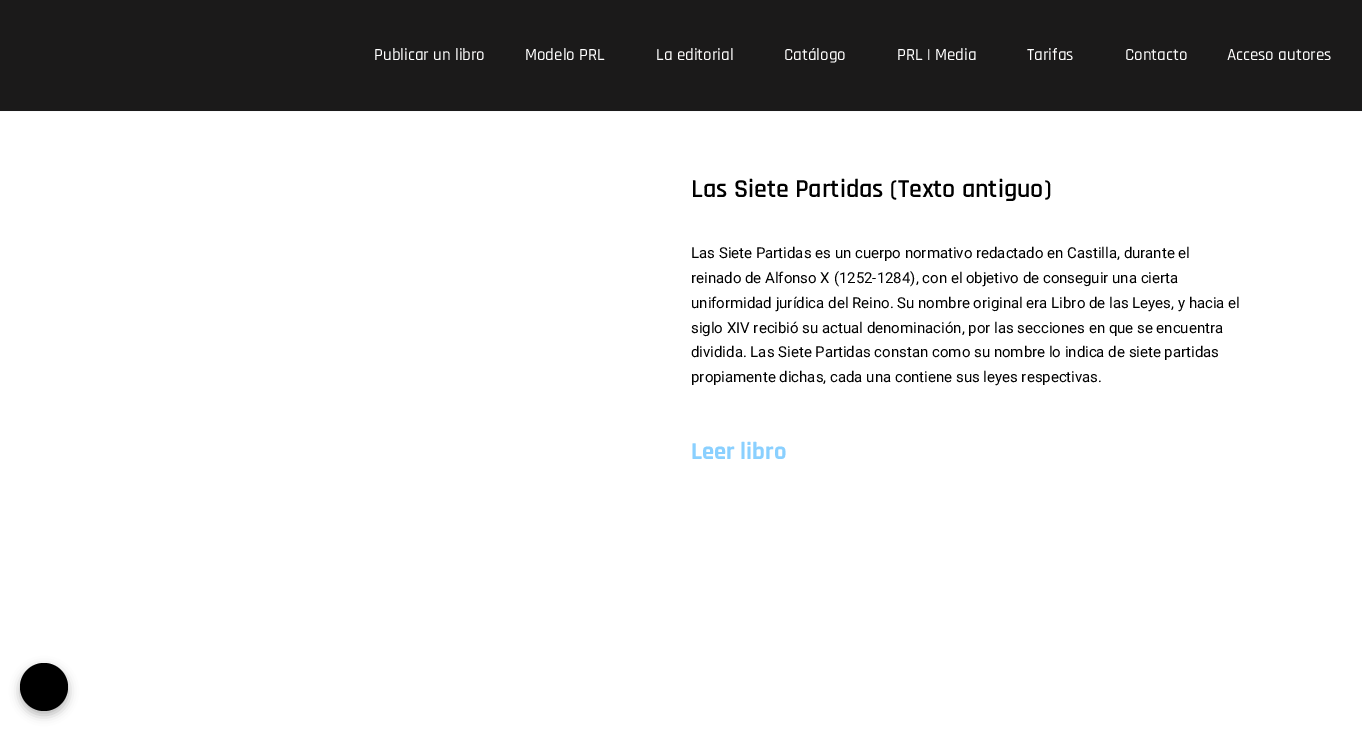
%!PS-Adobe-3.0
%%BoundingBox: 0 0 1362 731
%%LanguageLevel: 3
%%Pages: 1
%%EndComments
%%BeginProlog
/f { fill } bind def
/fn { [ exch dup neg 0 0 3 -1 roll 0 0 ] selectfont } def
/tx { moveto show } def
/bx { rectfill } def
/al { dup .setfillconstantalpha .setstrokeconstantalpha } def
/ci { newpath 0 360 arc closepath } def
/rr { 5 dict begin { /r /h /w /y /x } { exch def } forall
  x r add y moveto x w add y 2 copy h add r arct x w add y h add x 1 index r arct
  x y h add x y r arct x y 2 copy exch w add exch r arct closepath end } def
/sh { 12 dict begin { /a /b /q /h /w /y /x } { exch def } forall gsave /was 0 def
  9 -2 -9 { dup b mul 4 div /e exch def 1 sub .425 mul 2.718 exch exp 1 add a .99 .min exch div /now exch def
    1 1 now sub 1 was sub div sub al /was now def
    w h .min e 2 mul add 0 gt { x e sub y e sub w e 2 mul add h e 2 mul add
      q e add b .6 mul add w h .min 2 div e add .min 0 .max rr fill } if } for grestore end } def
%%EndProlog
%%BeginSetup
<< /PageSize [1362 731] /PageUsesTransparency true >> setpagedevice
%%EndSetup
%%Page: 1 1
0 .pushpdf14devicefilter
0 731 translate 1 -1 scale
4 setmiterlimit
0.976 0.98 0.984 setrgbcolor
0 0 1362 731 bx
0.106 0.102 0.102 setrgbcolor
0 0 1362 111 bx
/Rajdhani-Medium 17 fn
1 setgray
(Publicar un libro) 374 60 tx
(Modelo PRL) 525 60 tx
(La editorial) 656 60 tx
(Catálogo) 784 60 tx
(PRL | Media) 897 60 tx
(Tarifas) 1027 60 tx
(Contacto) 1125 60 tx
(Acceso autores) 1227 60 tx
0 112 1362 619 bx
/Rajdhani-SemiBold 26 fn
0 setgray
(Las Siete Partidas \(Texto antiguo\)) 691 197 tx
/Roboto-Regular 15 fn
(Las Siete Partidas es un cuerpo normativo redactado en Castilla, durante el) 691 258 tx
(reinado de Alfonso X \(1252-1284\), con el objetivo de conseguir una cierta) 691 283 tx
(uniformidad jurídica del Reino. Su nombre original era Libro de las Leyes, y hacia el) 691 308 tx
(siglo XIV recibió su actual denominación, por las secciones en que se encuentra) 691 333 tx
(dividida. Las Siete Partidas constan como su nombre lo indica de siete partidas) 691 357 tx
(propiamente dichas, cada una contiene sus leyes respectivas.) 691 382 tx
/Rajdhani-Bold 24.5 fn
0.541 0.816 1 setrgbcolor
(Leer libro) 691 459 tx
0 setgray
20 667 48 48 24 5 0.3 sh
44 687 24 ci f
.poppdf14devicefilter showpage
%%EOF
